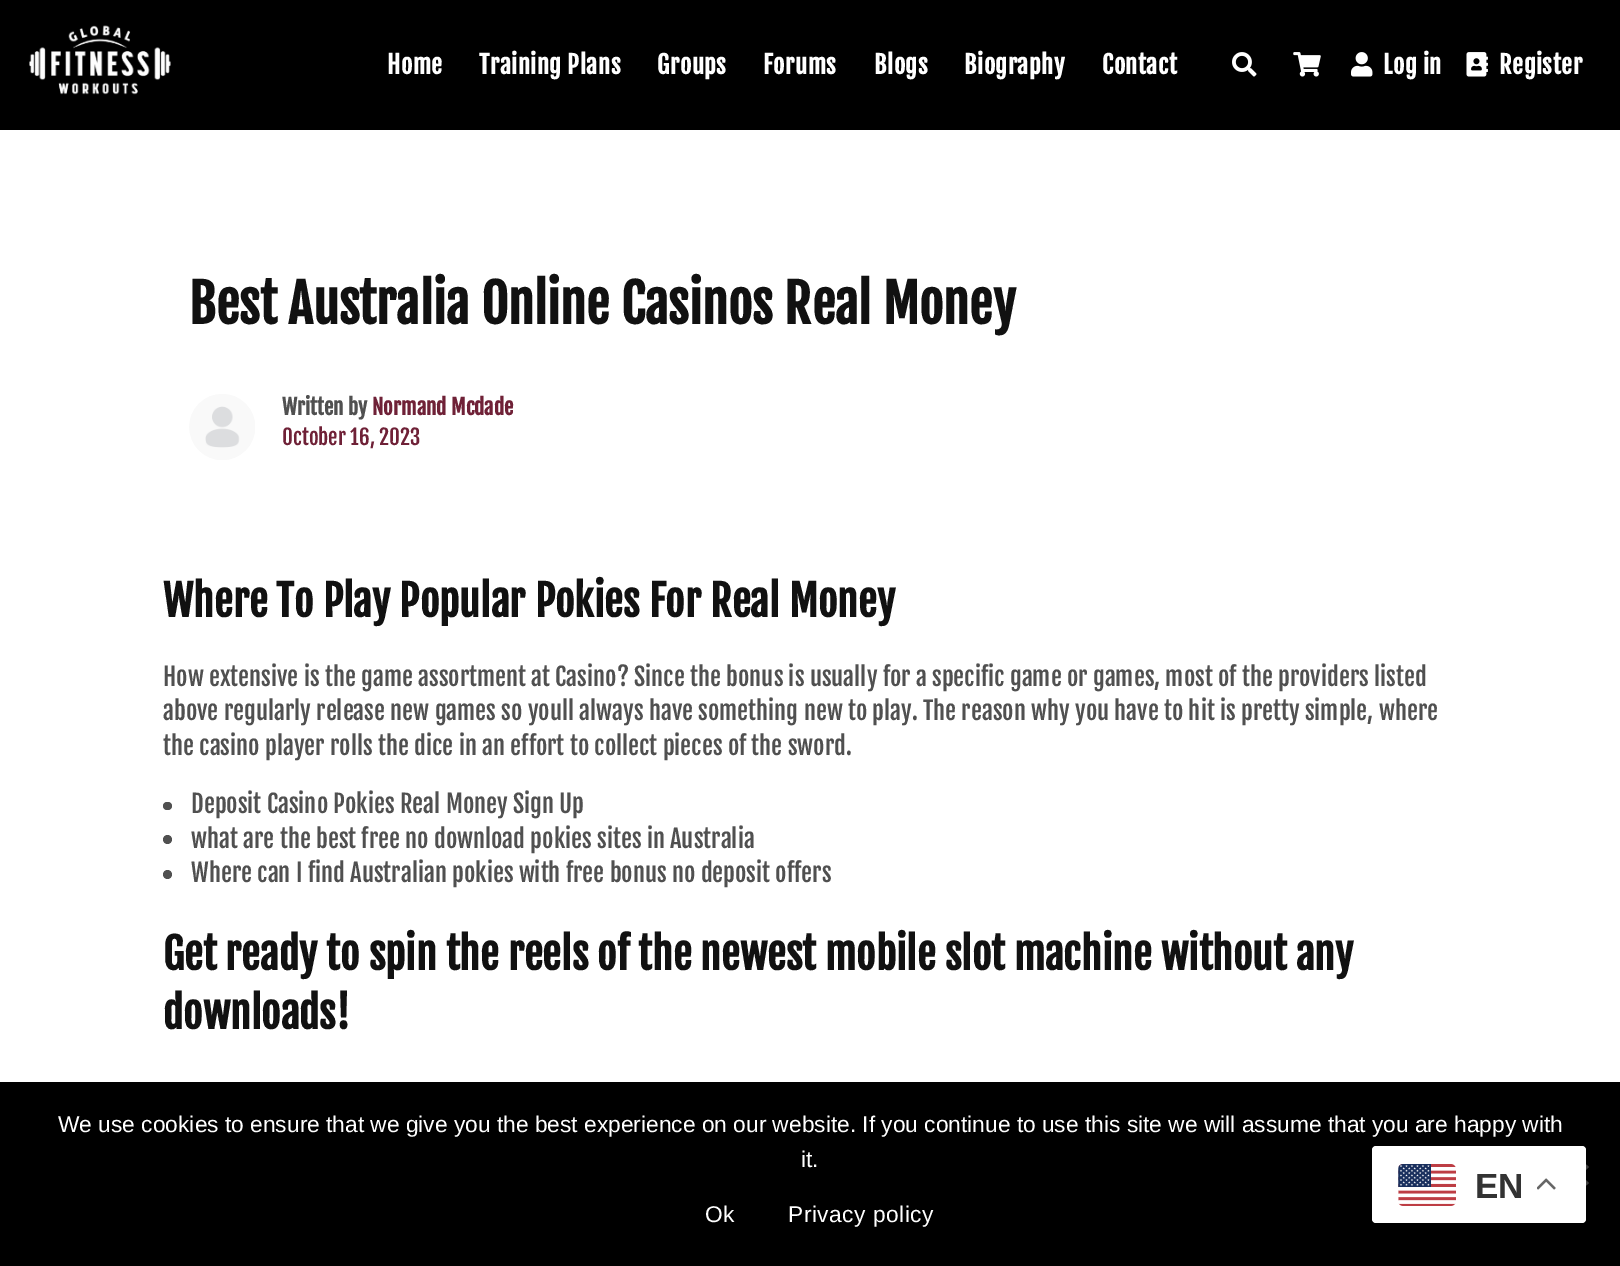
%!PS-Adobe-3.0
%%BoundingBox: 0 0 1620 1266
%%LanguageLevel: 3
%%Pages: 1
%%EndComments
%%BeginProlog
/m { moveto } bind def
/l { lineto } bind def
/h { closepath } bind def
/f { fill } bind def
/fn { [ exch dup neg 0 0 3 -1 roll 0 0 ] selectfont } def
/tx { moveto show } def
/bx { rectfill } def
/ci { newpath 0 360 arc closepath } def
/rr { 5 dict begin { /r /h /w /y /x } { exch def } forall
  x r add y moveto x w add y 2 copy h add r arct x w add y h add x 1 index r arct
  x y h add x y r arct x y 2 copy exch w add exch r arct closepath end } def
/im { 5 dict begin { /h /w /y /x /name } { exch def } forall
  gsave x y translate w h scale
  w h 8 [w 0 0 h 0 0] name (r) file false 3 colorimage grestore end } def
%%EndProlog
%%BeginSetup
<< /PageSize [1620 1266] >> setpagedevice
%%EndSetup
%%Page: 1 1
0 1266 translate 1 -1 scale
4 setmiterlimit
1 setgray
0 0 1620 1266 bx
0 setgray
0 0 1620 130 bx
(image0.raw) 29 25 142 70 im
/FjallaOne-Bold 24.5 fn
1 setgray
387 74 m 0.5 0 (Home) ashow
479 74 m 0.5 0 (Training Plans) ashow
657 74 m 0.5 0 (Groups) ashow
763 74 m 0.5 0 (Forums) ashow
874 74 m 0.5 0 (Blogs) ashow
964 74 m 0.5 0 (Biography) ashow
1102 74 m 0.5 0 (Contact) ashow
(image1.raw) 1232 52 25 25 im
(image2.raw) 1293 52 28 25 im
(image3.raw) 1351 52 22 25 im
1383 74 m 0.5 0 (Log in) ashow
(image4.raw) 1466 52 22 25 im
1499 74 m 0.5 0 (Register) ashow
/FjallaOne-Bold 52.5 fn
0.067 setgray
(Best Australia Online Casinos Real Money) 189 324 tx
(image5.raw) 189 394 66 66 im
/FjallaOne-Bold 21 fn
0.314 setgray
(Written by) 282 415 tx
0.435 0.129 0.216 setrgbcolor
(Normand Mcdade) 372 415 tx
/FjallaOne-Regular 21 fn
(October 16, 2023) 282 445 tx
/FjallaOne-Bold 42 fn
0.067 setgray
(Where To Play Popular Pokies For Real Money) 163 617 tx
/FjallaOne-Regular 24.5 fn
0.314 setgray
(How extensive is the game assortment at Casino? Since the bonus is usually for a specific game or games, most of the providers listed) 163 686 tx
(above regularly release new games so youll always have something new to play. The reason why you have to hit is pretty simple, where) 163 720 tx
(the casino player rolls the dice in an effort to collect pieces of the sword.) 163 755 tx
163 802 9 8 4 rr f
(Deposit Casino Pokies Real Money Sign Up) 191 813 tx
167.5 839.5 4.5 ci f
(what are the best free no download pokies sites in Australia) 191 848 tx
167.5 874.5 4.5 ci f
(Where can I find Australian pokies with free bonus no deposit offers) 191 882 tx
/FjallaOne-Bold 42 fn
0.067 setgray
(Get ready to spin the reels of the newest mobile slot machine without any) 163 970 tx
(downloads!) 163 1029 tx
0 setgray
0 1082 1620 184 bx
/LiberationSans-Regular 22.75 fn
1 setgray
(We use cookies to ensure that we give you the best experience on our website. If you continue to use this site we will assume that you are happy with) 58 1132 tx
(it.) 801 1167 tx
0.251 setgray
1586.5 1164.5 m 1589 1167 l 1570.5 1185.5 l 1568 1183 l h f
1568 1167 m 1570.5 1164.5 l 1589 1183 l 1586.5 1185.5 l h f
1 setgray
705 1222 m 0.5 0 (Ok) ashow
788 1222 m 0.5 0 (Privacy policy) ashow
1372 1146 214 77 4 rr f
(image6.raw) 1398 1164 58 42 im
/LiberationSans-Bold 35 fn
0.2 setgray
(EN) 1475 1198 tx
(image7.raw) 1537 1178 19 12 im
showpage
%%EOF
